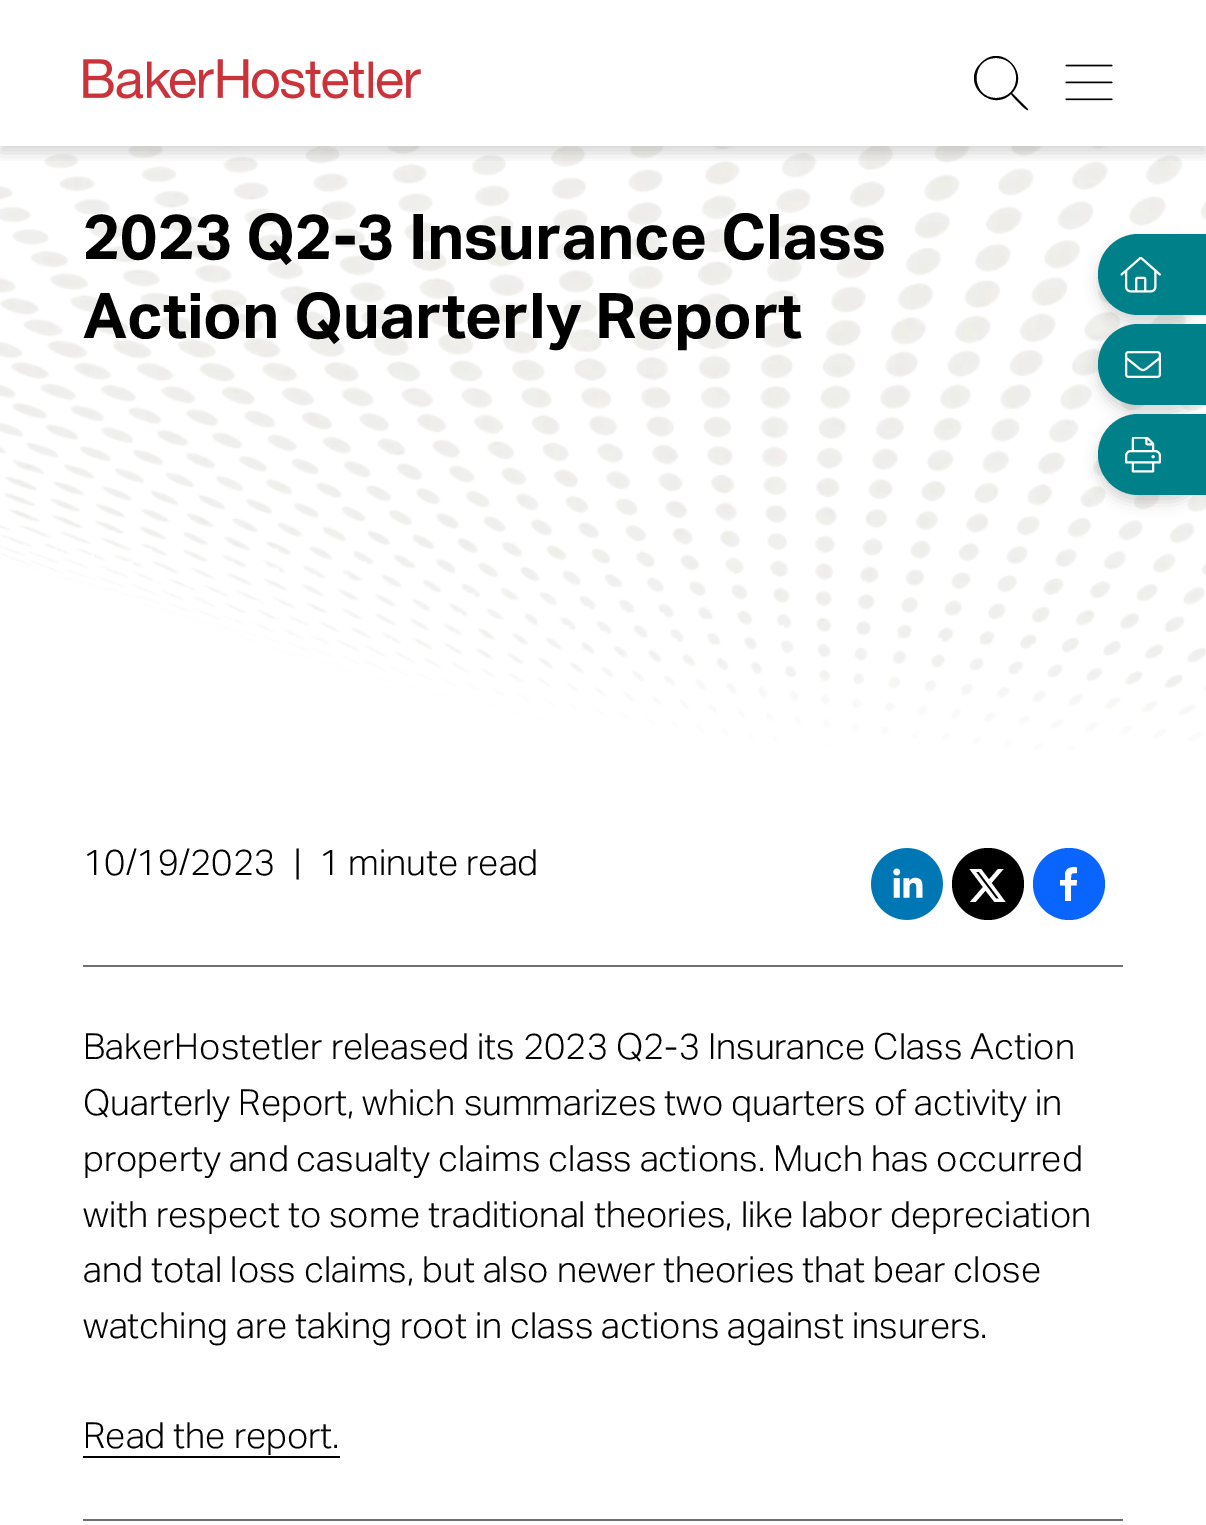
%!PS-Adobe-3.0
%%BoundingBox: 0 0 1206 1525
%%LanguageLevel: 3
%%Pages: 1
%%EndComments
%%BeginProlog
/m { moveto } bind def
/l { lineto } bind def
/c { curveto } bind def
/h { closepath } bind def
/f { fill } bind def
/q { gsave } bind def
/Q { grestore } bind def
/fn { [ exch dup neg 0 0 3 -1 roll 0 0 ] selectfont } def
/tx { moveto show } def
/bx { rectfill } def
/al { dup .setfillconstantalpha .setstrokeconstantalpha } def
/ci { newpath 0 360 arc closepath } def
/rr { 5 dict begin { /r /h /w /y /x } { exch def } forall
  x r add y moveto x w add y 2 copy h add r arct x w add y h add x 1 index r arct
  x y h add x y r arct x y 2 copy exch w add exch r arct closepath end } def
/sh { 12 dict begin { /a /b /q /h /w /y /x } { exch def } forall gsave /was 0 def
  9 -2 -9 { dup b mul 4 div /e exch def 1 sub .425 mul 2.718 exch exp 1 add a .99 .min exch div /now exch def
    1 1 now sub 1 was sub div sub al /was now def
    w h .min e 2 mul add 0 gt { x e sub y e sub w e 2 mul add h e 2 mul add
      q e add b .6 mul add w h .min 2 div e add .min 0 .max rr fill } if } for grestore end } def
/im { 5 dict begin { /h /w /y /x /name } { exch def } forall
  gsave x y translate w h scale
  w h 8 [w 0 0 h 0 0] name (r) file false 3 colorimage grestore end } def
%%EndProlog
%%BeginSetup
<< /PageSize [1206 1525] /PageUsesTransparency true >> setpagedevice
%%EndSetup
%%Page: 1 1
0 .pushpdf14devicefilter
0 1525 translate 1 -1 scale
4 setmiterlimit
1 setgray
0 0 1206 1525 bx
(image2.raw) 0 146 1206 604 im
q
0 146 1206 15 rectclip
0 setgray
0 7 1206 146 0 7 0.16 sh
Q
(image0.raw) 83 59 338 40 im
0 setgray
1028 109 m 1012 93 l 1031 73 1001 42 981 63 c 960 83 991 113 1011 94 c 1013 97 1026 111 1028 110 c h 996 98 m 970 98 970 58 996 58 c 1023 58 1023 98 996 98 c h f
(image1.raw) 1065 64 48 37 im
/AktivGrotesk-Bold 63 fn
(2023 Q2-3 Insurance Class) 83 259 tx
(Action Quarterly Report) 83 338 tx
1098 241 108 81 40.5 7 0.16 sh
0 0.506 0.541 setrgbcolor
1138.5 234 m 1206 234 l 1206 315 l 1138.5 315 l 1116 315 1098 297 1098 274.5 c 1098 252 1116 234 1138.5 234 c h f
(image3.raw) 1120 257 41 36 im
0 setgray
1098 331 108 81 40.5 7 0.16 sh
0 0.506 0.541 setrgbcolor
1138.5 324 m 1206 324 l 1206 405 l 1138.5 405 l 1116 405 1098 387 1098 364.5 c 1098 342 1116 324 1138.5 324 c h f
(image4.raw) 1125 351 36 27 im
0 setgray
1098 421 108 81 40.5 7 0.16 sh
0 0.506 0.541 setrgbcolor
1138.5 414 m 1206 414 l 1206 495 l 1138.5 495 l 1116 495 1098 477 1098 454.5 c 1098 432 1116 414 1138.5 414 c h f
(image5.raw) 1125 437 36 36 im
0.439 setgray
83 965 1040 2 bx
/AktivGrotesk-Light 36 fn
0 setgray
(10/19/2023) 83 875 tx
(|) 294 875 tx
(1 minute read) 319 875 tx
(image6.raw) 871 848 72 72 im
988 884 36 ci f
1 setgray
998 869 m 1003.5 869 l 991.5 883 l 1005.5 902 l 994.5 902 l 985.5 890.5 l 975.5 902 l 970 902 l 983 887 l 969.5 869 l 981 869 l 989 879.5 l h 996 898.5 m 999 898.5 l 979 872 l 976 872 l h f
0.035 0.396 0.996 setrgbcolor
1069 884 36 ci f
1 setgray
1071 901 m 1071 885.5 l 1076.5 885.5 l 1077 880 l 1071 880 l 1071 873.5 1070.5 873 1077 873 c 1077 867.5 l 1072.5 866.5 1066 867.5 1065 873.5 c 1065 880 l 1060 880 l 1060 885.5 l 1065 885.5 l 1065 901 l h f
0 setgray
(BakerHostetler released its 2023 Q2-3 Insurance Class Action) 83 1059 tx
(Quarterly Report, which summarizes two quarters of activity in) 83 1115 tx
(property and casualty claims class actions. Much has occurred) 83 1171 tx
(with respect to some traditional theories, like labor depreciation) 83 1227 tx
(and total loss claims, but also newer theories that bear close) 83 1282 tx
(watching are taking root in class actions against insurers.) 83 1338 tx
(Read the report.) 83 1448 tx
83 1456 257 2 bx
0.439 setgray
83 1519 1040 2 bx
.poppdf14devicefilter showpage
%%EOF
